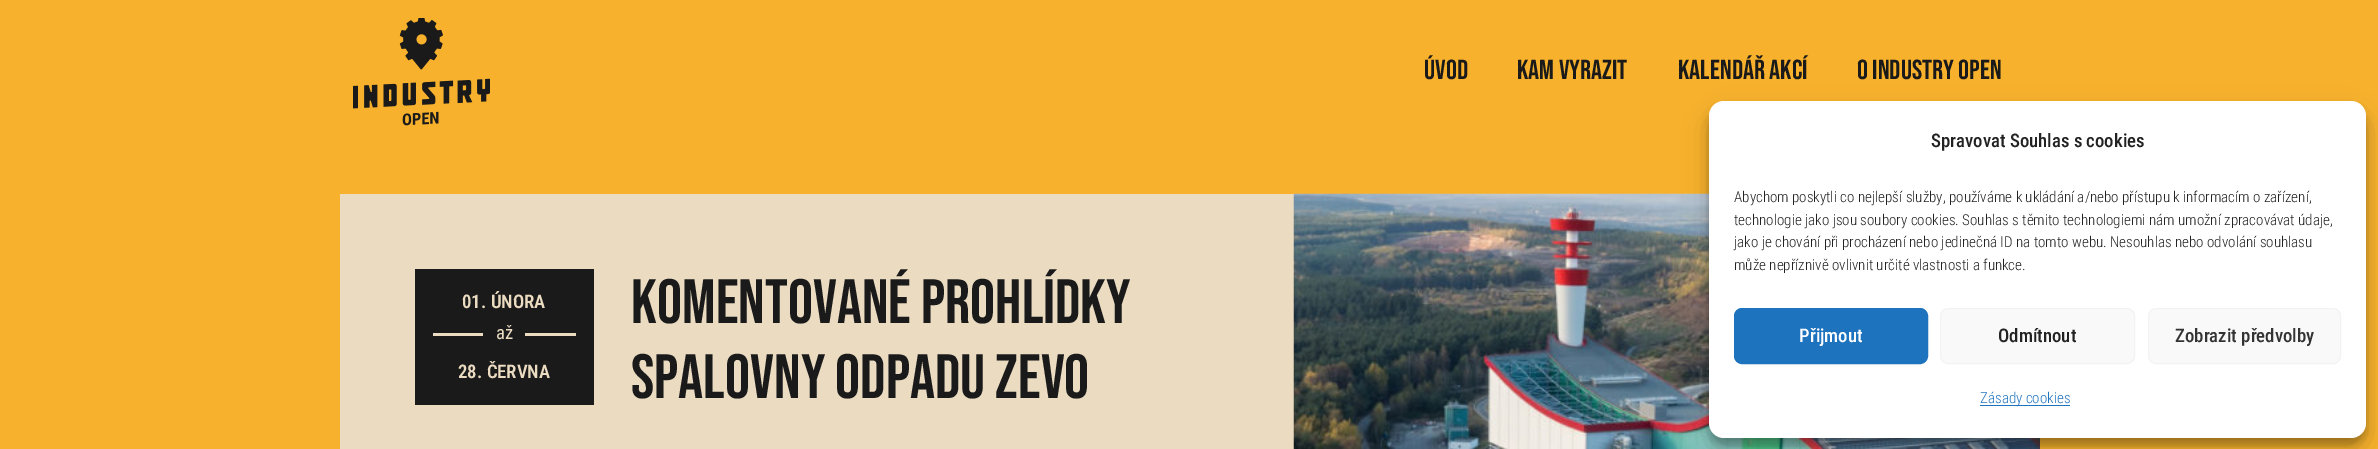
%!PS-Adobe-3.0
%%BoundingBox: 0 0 2378 449
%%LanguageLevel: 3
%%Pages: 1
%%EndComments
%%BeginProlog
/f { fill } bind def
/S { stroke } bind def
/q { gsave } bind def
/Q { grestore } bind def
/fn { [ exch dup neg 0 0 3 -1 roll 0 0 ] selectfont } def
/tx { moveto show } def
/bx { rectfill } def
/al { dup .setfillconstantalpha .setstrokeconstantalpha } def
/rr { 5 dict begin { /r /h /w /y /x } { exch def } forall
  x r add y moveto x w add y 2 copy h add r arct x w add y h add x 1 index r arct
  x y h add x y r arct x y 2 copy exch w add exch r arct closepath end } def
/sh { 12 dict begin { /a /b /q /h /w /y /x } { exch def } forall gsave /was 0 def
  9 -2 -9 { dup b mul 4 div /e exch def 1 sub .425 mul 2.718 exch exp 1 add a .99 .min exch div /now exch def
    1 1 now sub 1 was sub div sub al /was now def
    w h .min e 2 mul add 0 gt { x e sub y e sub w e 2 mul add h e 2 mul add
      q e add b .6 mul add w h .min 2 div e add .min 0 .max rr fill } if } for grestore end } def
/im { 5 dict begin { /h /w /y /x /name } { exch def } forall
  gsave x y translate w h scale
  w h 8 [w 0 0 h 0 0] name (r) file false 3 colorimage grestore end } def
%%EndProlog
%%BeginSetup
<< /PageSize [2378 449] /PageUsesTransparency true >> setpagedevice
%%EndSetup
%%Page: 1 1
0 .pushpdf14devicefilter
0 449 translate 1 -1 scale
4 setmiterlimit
0.973 0.694 0.173 setrgbcolor
0 0 2378 449 bx
(image0.raw) 353 18 137 108 im
/BebasNeue-Regular 27.5 fn
0.102 setgray
(Úvod) 1424 79 tx
(Kam vyrazit) 1517 79 tx
(Kalendář akcí) 1678 79 tx
(O Industry Open) 1857 79 tx
0.918 0.859 0.757 setrgbcolor
340 194 954 255 bx
0.102 setgray
415 269 179 136 bx
/RobotoCondensed-SemiBold 18.75 fn
0.918 0.859 0.757 setrgbcolor
(01. ÚNORA) 462 308 tx
433 333 50 3 bx
/RobotoCondensed-Regular 18.75 fn
(až) 496 339 tx
525 333 51 3 bx
/RobotoCondensed-SemiBold 18.75 fn
(28. ČERVNA) 458 378 tx
/BebasNeue-Regular 62.5 fn
0.102 setgray
(Komentované prohlídky) 631 323 tx
(spalovny odpadu ZEVO) 631 398 tx
(image1.raw) 1293 193 747 256 im
0 setgray
1709 109 657 336 15 4 0.23 sh
1709 114 657 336 15 12.5 0.19 sh
1 setgray
1709 101 657 337 15 rr f
/RobotoCondensed-Medium 18.75 fn
0.133 setgray
(Spravovat Souhlas s cookies) 1931 147 tx
/RobotoCondensed-Light 15 fn
(Abychom poskytli co nejlepší služby, používáme k ukládání a/nebo přístupu k informacím o zařízení,) 1734 202 tx
(technologie jako jsou soubory cookies. Souhlas s těmito technologiemi nám umožní zpracovávat údaje,) 1734 225 tx
(jako je chování při procházení nebo jedinečná ID na tomto webu. Nesouhlas nebo odvolání souhlasu) 1734 247 tx
(může nepříznivě ovlivnit určité vlastnosti a funkce.) 1734 270 tx
0.118 0.451 0.745 setrgbcolor
1734.5 308.5 193 55 7.5 rr q f Q
S
/RobotoCondensed-Medium 18.75 fn
1 setgray
(Přijmout) 1799 342 tx
0.976 setgray
1940.5 308.5 194 55 7.5 rr q f Q
0.949 setgray
S
0.133 setgray
(Odmítnout) 1998 342 tx
0.976 setgray
2148.5 308.5 192 55 7.5 rr q f Q
0.949 setgray
S
0.2 setgray
(Zobrazit předvolby) 2175 342 tx
0.118 0.451 0.745 setrgbcolor
1980 405 90 1 bx
/RobotoCondensed-Light 15 fn
(Zásady cookies) 1980 403 tx
.poppdf14devicefilter showpage
%%EOF
